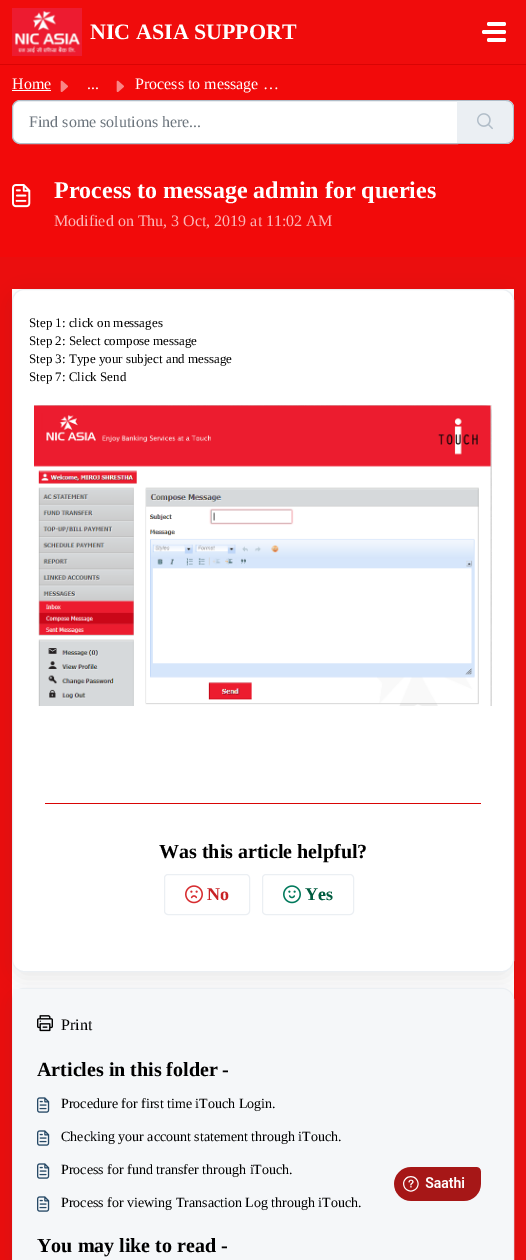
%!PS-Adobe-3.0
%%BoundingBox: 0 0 526 1260
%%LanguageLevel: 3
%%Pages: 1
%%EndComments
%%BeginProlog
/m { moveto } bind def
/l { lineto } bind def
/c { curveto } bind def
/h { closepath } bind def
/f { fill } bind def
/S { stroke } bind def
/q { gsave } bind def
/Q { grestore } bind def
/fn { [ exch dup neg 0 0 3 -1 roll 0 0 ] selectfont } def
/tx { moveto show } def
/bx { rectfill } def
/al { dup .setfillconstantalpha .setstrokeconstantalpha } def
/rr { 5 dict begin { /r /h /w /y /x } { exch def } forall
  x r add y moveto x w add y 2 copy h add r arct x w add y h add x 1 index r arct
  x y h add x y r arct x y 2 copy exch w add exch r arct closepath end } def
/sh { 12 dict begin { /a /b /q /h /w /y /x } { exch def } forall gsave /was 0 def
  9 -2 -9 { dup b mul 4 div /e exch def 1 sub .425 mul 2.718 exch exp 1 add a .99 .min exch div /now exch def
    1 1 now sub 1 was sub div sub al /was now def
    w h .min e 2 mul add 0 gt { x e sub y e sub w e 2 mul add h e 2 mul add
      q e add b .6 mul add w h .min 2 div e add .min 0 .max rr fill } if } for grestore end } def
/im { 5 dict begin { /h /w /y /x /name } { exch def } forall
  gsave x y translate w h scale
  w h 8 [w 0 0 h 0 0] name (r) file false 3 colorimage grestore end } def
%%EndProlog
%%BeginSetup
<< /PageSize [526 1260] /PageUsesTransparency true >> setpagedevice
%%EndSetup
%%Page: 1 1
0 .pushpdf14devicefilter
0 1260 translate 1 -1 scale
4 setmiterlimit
0.922 0.055 0.055 setrgbcolor
0 0 526 1260 bx
0.941 0.047 0.047 setrgbcolor
0 0 526 64 bx
0.851 0.016 0.016 setrgbcolor
0 64 526 1 bx
(image0.raw) 12 8 70 48 im
/LiberationSerif-Bold 22 fn
1 setgray
(NIC ASIA SUPPORT) 90 39 tx
487 22 19 4 2 rr f
482 30 24 4 2 rr f
487 38 19 4 2 rr f
0.949 0.039 0.039 setrgbcolor
0 65 526 192 bx
/LiberationSerif-Regular 16 fn
1 setgray
(Home) 12 89 tx
12 90 39 1 bx
(image1.raw) 60 80 8 12 im
(...) 87 89 tx
(image1.raw) 116 80 8 12 im
(Process to message …) 135 89 tx
20 100.5 m 457.5 100.5 l 457.5 143.5 l 20 143.5 l 16 143.5 12.5 140 12.5 136 c 12.5 108 l 12.5 104 16 100.5 20 100.5 c h q f Q
0.694 0.741 0.784 setrgbcolor
S
0.424 0.459 0.49 setrgbcolor
(Find some solutions here...) 29 127 tx
0.922 0.937 0.953 setrgbcolor
457 100 m 506 100 l 510.5 100 514 103.5 514 108 c 514 136 l 514 140.5 510.5 144 506 144 c 457 144 l h f
0.694 0.741 0.784 setrgbcolor
457 100 m 506 100 l 510 100 514 104 514 108 c 514 136 l 514 140 510 144 506 144 c 457 144 l h 457 101 m 506 101 l 510 101 513 104 513 108 c 513 136 l 513 140 510 143 506 143 c 457 143 l h eofill
(image2.raw) 477 113 16 17 im
(image3.raw) 12 184 19 24 im
/LiberationSerif-Bold 24 fn
1 setgray
(Process to message admin for queries) 54 198 tx
/LiberationSerif-Regular 16 fn
0.984 0.714 0.714 setrgbcolor
(Modified on Thu, 3 Oct, 2019 at 11:02 AM) 54 226 tx
1 setgray
12 289 502 712 bx
q
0 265 m 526 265 l 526 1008 l 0 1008 l h 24 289 m 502 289 l 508.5 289 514 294.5 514 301 c 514 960 l 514 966.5 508.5 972 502 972 c 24 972 l 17.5 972 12 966.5 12 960 c 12 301 l 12 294.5 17.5 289 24 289 c h eoclip newpath
0.153 0.192 0.227 setrgbcolor
12 295 502 683 12 9.5 0.1 sh
Q
0.922 0.937 0.953 setrgbcolor
12.5 289.5 501 682 11.5 rr S
/LiberationSerif-Regular 13 fn
0 setgray
(Step 1: click on messages) 29 327 tx
(Step 2: Select compose message) 29 345 tx
(Step 3: Type your subject and message) 29 363 tx
(Step 7: Click Send) 29 381 tx
(image4.raw) 34 405 458 301 im
0.851 0.016 0.016 setrgbcolor
45 803 436 1 bx
/LiberationSerif-Bold 20 fn
0 setgray
(Was this article helpful?) 159 858 tx
0.922 0.937 0.953 setrgbcolor
164.5 874.5 85 40 3.5 rr S
(image5.raw) 185 885 18 19 im
/LiberationSerif-Bold 18 fn
0.784 0.129 0.141 setrgbcolor
(No) 207 900 tx
0.922 0.937 0.953 setrgbcolor
262.5 874.5 91 40 3.5 rr S
(image6.raw) 283 885 18 19 im
0 0.361 0.247 setrgbcolor
(Yes) 305 900 tx
0.153 0.192 0.227 setrgbcolor
12 994 502 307 12 9.5 0.1 sh
0.922 0.937 0.953 setrgbcolor
12.5 988.5 501 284 11.5 rr S
0.961 0.969 0.976 setrgbcolor
13 989 m 501 989 l 507.5 989 513 994.5 513 1001 c 513 1260 l 513 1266.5 507.5 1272 501 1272 c 13 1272 l h f
(image7.raw) 37 1015 16 17 im
/LiberationSerif-Regular 16 fn
0 setgray
(Print) 61 1030 tx
/LiberationSerif-Bold 20 fn
(Articles in this folder -) 37 1076 tx
(image8.raw) 37 1097 13 16 im
/LiberationSerif-Regular 14 fn
(Procedure for first time iTouch Login.) 61 1108 tx
(image8.raw) 37 1130 13 16 im
(Checking your account statement through iTouch.) 61 1141 tx
(image8.raw) 37 1163 13 16 im
(Process for fund transfer through iTouch.) 61 1174 tx
(image8.raw) 37 1196 13 16 im
(Process for viewing Transaction Log through iTouch.) 61 1207 tx
/LiberationSerif-Bold 20 fn
(You may like to read -) 37 1252 tx
(image9.raw) 394 1167 88 34 im
.poppdf14devicefilter showpage
%%EOF
